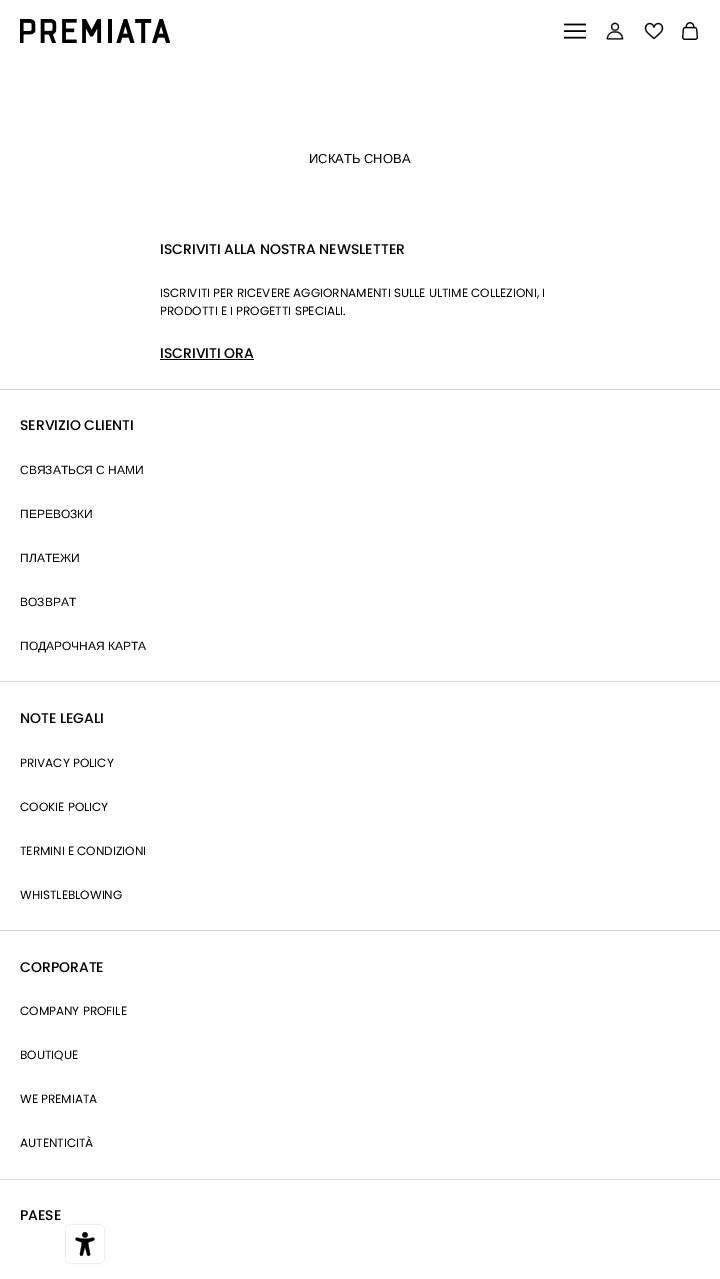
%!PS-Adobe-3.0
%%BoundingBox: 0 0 720 1279
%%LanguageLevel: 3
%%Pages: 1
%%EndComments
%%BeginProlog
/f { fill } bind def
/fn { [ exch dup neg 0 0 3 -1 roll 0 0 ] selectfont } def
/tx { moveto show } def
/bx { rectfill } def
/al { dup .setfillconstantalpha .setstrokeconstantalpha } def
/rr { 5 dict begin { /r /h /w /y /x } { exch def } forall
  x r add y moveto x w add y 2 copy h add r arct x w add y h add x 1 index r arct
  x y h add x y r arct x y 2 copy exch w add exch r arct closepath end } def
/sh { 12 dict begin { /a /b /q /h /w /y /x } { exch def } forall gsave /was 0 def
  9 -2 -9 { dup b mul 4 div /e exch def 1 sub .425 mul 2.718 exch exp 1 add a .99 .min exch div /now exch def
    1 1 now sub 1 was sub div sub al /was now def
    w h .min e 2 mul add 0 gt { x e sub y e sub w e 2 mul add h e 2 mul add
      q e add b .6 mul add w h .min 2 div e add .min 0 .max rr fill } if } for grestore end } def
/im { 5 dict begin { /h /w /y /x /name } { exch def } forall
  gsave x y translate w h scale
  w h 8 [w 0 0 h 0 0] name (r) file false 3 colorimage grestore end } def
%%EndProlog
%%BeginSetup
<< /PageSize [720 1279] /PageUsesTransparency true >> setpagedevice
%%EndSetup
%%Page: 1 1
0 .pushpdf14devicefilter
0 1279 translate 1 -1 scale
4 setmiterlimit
1 setgray
0 0 720 1279 bx
(image0.raw) 20 19 150 24 im
(image1.raw) 564 23 22 16 im
(image2.raw) 606 22 18 18 im
(image3.raw) 644 22 20 18 im
(image4.raw) 682 22 16 18 im
/LiberationSans-Regular 13 fn
0 setgray
(ИСКАТЬ СНОВА) 309 163 tx
0.851 setgray
0 389 720 1 bx
/Poppins-Medium 14 fn
0 setgray
(ISCRIVITI ALLA NOSTRA NEWSLETTER) 160 254 tx
/Poppins-Regular 12 fn
(ISCRIVITI PER RICEVERE AGGIORNAMENTI SULLE ULTIME COLLEZIONI, I) 160 297 tx
(PRODOTTI E I PROGETTI SPECIALI.) 160 315 tx
/Poppins-Medium 14 fn
(ISCRIVITI ORA) 160 358 tx
160 359 94 1 bx
0.851 setgray
0 681 720 1 bx
0 setgray
(SERVIZIO CLIENTI) 20 430 tx
/LiberationSans-Regular 12 fn
(СВЯЗАТЬСЯ С НАМИ) 20 474 tx
(ПЕРЕВОЗКИ) 20 518 tx
(ПЛАТЕЖИ) 20 562 tx
(ВОЗВРАТ) 20 606 tx
(ПОДАРОЧНАЯ КАРТА) 20 650 tx
0.851 setgray
0 930 720 1 bx
/Poppins-Medium 14 fn
0 setgray
(NOTE LEGALI) 20 723 tx
/Poppins-Regular 12 fn
(PRIVACY POLICY) 20 767 tx
(COOKIE POLICY) 20 811 tx
(TERMINI E CONDIZIONI) 20 855 tx
(WHISTLEBLOWING) 20 899 tx
0.851 setgray
0 1179 720 1 bx
/Poppins-Medium 14 fn
0 setgray
(CORPORATE) 20 972 tx
/Poppins-Regular 12 fn
(COMPANY PROFILE) 20 1015 tx
(BOUTIQUE) 20 1059 tx
(WE PREMIATA) 20 1103 tx
(AUTENTICITÀ) 20 1147 tx
/Poppins-Medium 14 fn
(PAESE) 20 1220 tx
66 1225 38 38 5 1 0.2 sh
1 setgray
66 1225 38 38 5 rr f
(image5.raw) 75 1232 20 24 im
.poppdf14devicefilter showpage
%%EOF
